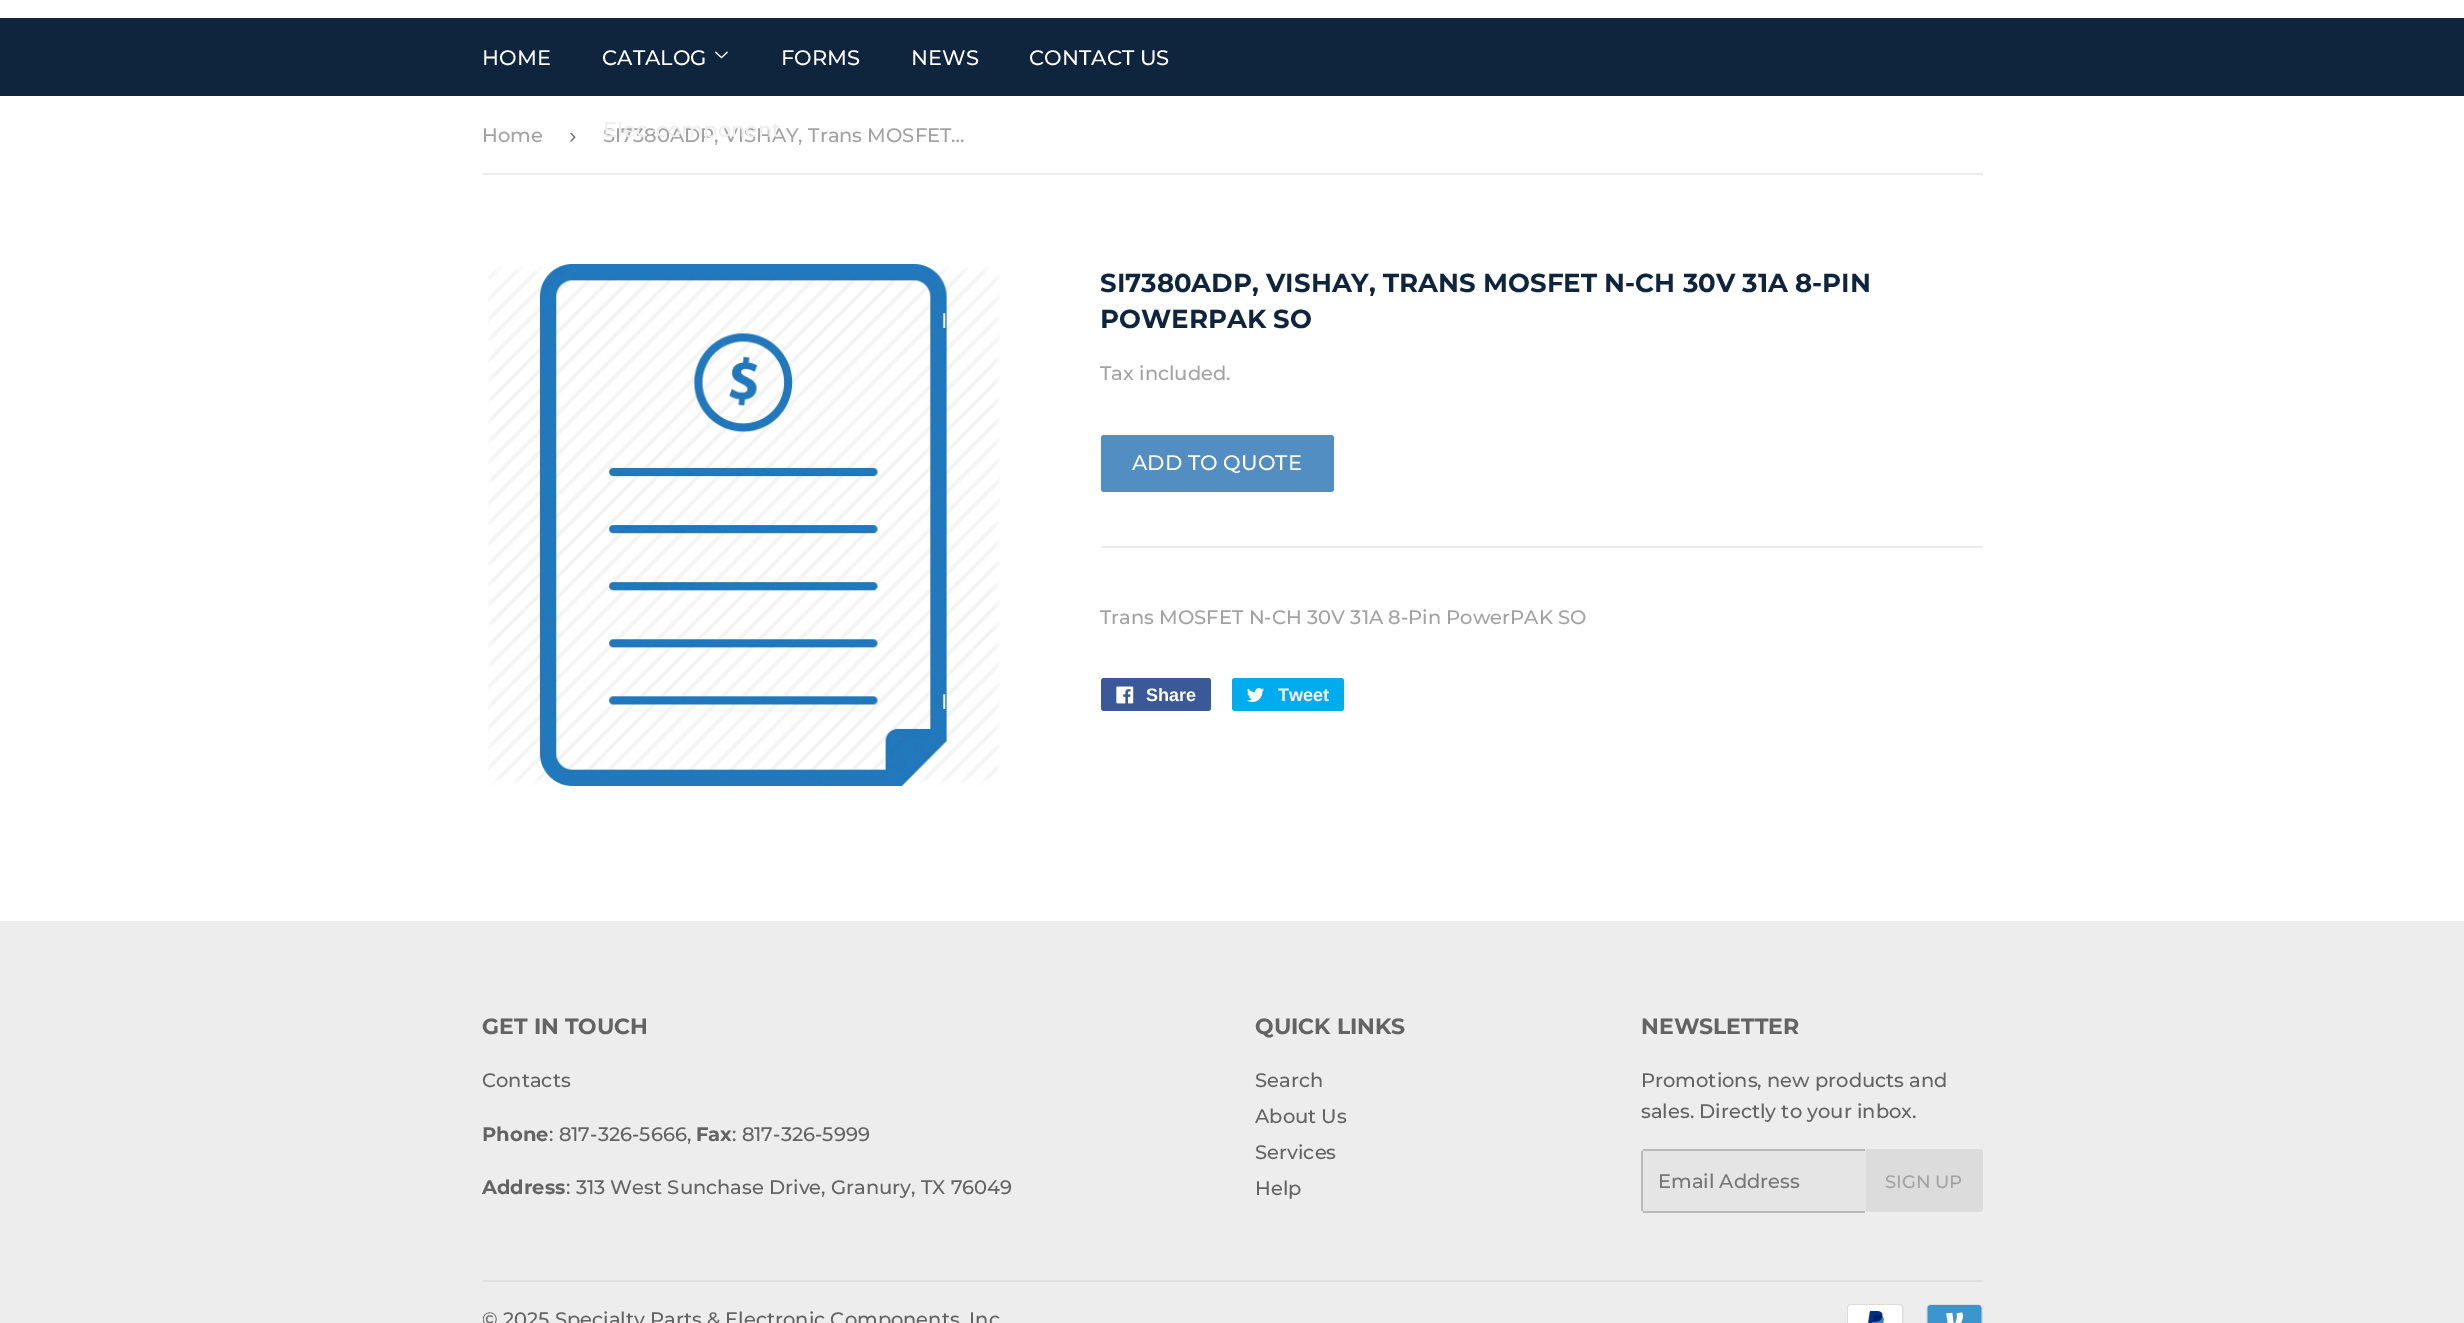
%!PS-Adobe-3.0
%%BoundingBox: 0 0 2464 1323
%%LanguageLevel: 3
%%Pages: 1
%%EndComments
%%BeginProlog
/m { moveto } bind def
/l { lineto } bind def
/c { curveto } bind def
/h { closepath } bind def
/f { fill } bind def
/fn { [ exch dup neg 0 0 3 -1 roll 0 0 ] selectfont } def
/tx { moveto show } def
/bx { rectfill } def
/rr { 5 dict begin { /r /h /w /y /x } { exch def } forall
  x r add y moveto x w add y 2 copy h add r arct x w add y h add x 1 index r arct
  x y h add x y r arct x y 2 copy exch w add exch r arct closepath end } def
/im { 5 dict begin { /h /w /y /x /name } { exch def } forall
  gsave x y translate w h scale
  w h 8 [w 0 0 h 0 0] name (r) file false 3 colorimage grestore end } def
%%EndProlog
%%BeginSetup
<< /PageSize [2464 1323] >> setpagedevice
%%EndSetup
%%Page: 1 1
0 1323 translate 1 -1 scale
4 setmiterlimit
1 setgray
0 0 2464 1323 bx
0.059 0.141 0.239 setrgbcolor
0 18 2464 78 bx
/Montserrat-Medium 21 fn
1 setgray
(HOME) 482 65 tx
(CATALOG) 602 65 tx
(image0.raw) 715 51 13 8 im
/Montserrat-Medium 19.5 fn
0.635 setgray
(SI7380ADP, VISHAY, Trans MOSFET…) 603 142 tx
/Montserrat-Medium 21 fn
0.933 setgray
(Elec-component) 603 137 tx
(image1.raw) 488 264 512 522 im
0.937 0.961 0.976 setrgbcolor
(I) 941 328 tx
(I) 941 709 tx
1 setgray
(FORMS) 781 65 tx
(NEWS) 911 65 tx
(CONTACT US) 1029 65 tx
0.925 setgray
483 173 1500 2 bx
/Montserrat-Medium 19.5 fn
0.635 setgray
(Home) 482 142 tx
/LiberationSans-Regular 22 fn
0.463 setgray
(›) 569 143 tx
/Montserrat-Bold 26 fn
0.059 0.141 0.239 setrgbcolor
(SI7380ADP, VISHAY, TRANS MOSFET N-CH 30V 31A 8-PIN) 1100 292 tx
(POWERPAK SO) 1100 328 tx
/Montserrat-Medium 19.5 fn
0.635 setgray
(Tax included.) 1100 380 tx
0.322 0.557 0.757 setrgbcolor
1101 435 233 57 3 rr f
/Montserrat-Medium 21 fn
1 setgray
(ADD TO QUOTE) 1132 470 tx
0.925 setgray
1101 546 882 2 bx
/Montserrat-Medium 19.5 fn
0.635 setgray
(Trans MOSFET N-CH 30V 31A 8-Pin PowerPAK SO) 1100 624 tx
0.231 0.349 0.596 setrgbcolor
1101 678 110 33 3 rr f
(image2.raw) 1116 686 18 18 im
/LiberationSans-Bold 18 fn
1 setgray
(Share) 1146 701 tx
0 0.675 0.929 setrgbcolor
1232 678 112 33 3 rr f
(image3.raw) 1247 687 17 15 im
1 setgray
(Tweet) 1278 701 tx
0.929 setgray
0 921 2464 402 bx
/Montserrat-Bold 22 fn
0.388 setgray
(GET IN TOUCH) 482 1034 tx
/Montserrat-Medium 19.5 fn
(Contacts) 482 1087 tx
/Montserrat-Bold 19.5 fn
(Phone) 482 1141 tx
/Montserrat-Medium 19.5 fn
(: 817-326-5666,) 549 1141 tx
/Montserrat-Bold 19.5 fn
(Fax) 696 1141 tx
/Montserrat-Medium 19.5 fn
(: 817-326-5999) 732 1141 tx
/Montserrat-Bold 19.5 fn
(Address) 482 1194 tx
/Montserrat-Medium 19.5 fn
(: 313 West Sunchase Drive, Granury, TX 76049) 566 1194 tx
/Montserrat-Bold 22 fn
(QUICK LINKS) 1255 1034 tx
/Montserrat-Medium 19.5 fn
(Search) 1255 1087 tx
(About Us) 1255 1123 tx
(Services) 1255 1159 tx
(Help) 1255 1195 tx
/Montserrat-Bold 22 fn
(NEWSLETTER) 1641 1034 tx
/Montserrat-Medium 19.5 fn
(Promotions, new products and) 1641 1087 tx
(sales. Directly to your inbox.) 1641 1118 tx
0.898 setgray
1641 1149 225 63 3 rr f
0.725 setgray
1643 1149 222 2 bx
1643 1211 222 2 bx
1641 1151 2 60 bx
0.463 setgray
(Email Address) 1658 1188 tx
0.863 setgray
1866 1149 m 1980 1149 l 1981.5 1149 1983 1150.5 1983 1152 c 1983 1209 l 1983 1210.5 1981.5 1212 1980 1212 c 1866 1212 l h f
/Montserrat-Medium 18 fn
0.635 setgray
(SIGN UP) 1885 1188 tx
0.878 setgray
483 1280 1500 2 bx
/Montserrat-Medium 19.5 fn
0.388 setgray
(© 2025 Specialty Parts & Electronic Components, Inc) 482 1326 tx
(image4.raw) 1847 1304 57 19 im
(image5.raw) 1926 1304 57 19 im
showpage
%%EOF
